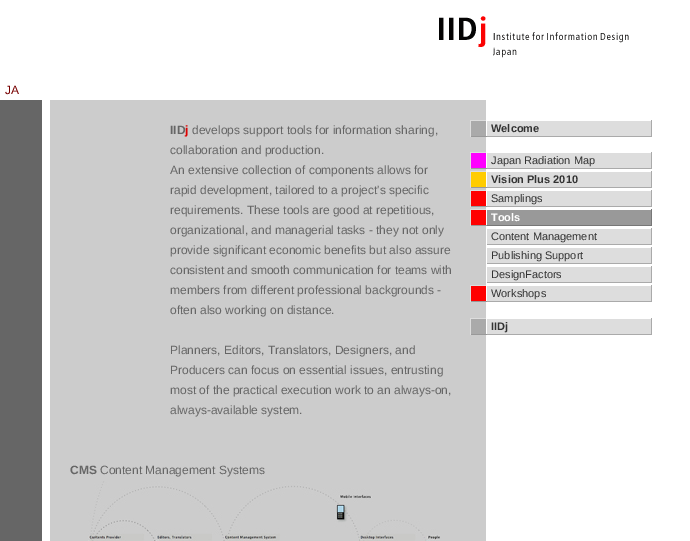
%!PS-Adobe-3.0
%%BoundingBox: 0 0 690 541
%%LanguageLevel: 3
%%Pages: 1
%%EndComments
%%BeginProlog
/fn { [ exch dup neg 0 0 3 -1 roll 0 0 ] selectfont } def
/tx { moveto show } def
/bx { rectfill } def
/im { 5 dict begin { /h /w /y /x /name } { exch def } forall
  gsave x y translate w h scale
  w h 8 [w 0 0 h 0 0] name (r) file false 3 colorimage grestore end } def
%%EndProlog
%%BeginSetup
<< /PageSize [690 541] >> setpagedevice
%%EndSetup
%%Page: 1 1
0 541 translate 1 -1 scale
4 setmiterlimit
1 setgray
0 0 690 541 bx
(image0.raw) 439 16 190 42 im
/LiberationSans-Regular 12 fn
0.467 0 0 setrgbcolor
(JA) 5 94 tx
0.4 setgray
0 100 42 441 bx
0.8 setgray
50 100 436 441 bx
/LiberationSans-Bold 12 fn
0.4 setgray
(IID) 170 134 tx
0.867 0 0 setrgbcolor
(j) 185 134 tx
/LiberationSans-Regular 12 fn
0.4 setgray
(develops support tools for information sharing,) 192 134 tx
(collaboration and production.) 170 154 tx
(An extensive collection of components allows for) 170 174 tx
(rapid development, tailored to a project's specific) 170 194 tx
(requirements. These tools are good at repetitious,) 170 214 tx
(organizational, and managerial tasks - they not only) 170 234 tx
(provide significant economic benefits but also assure) 170 254 tx
(consistent and smooth communication for teams with) 170 274 tx
(members from different professional backgrounds -) 170 294 tx
(often also working on distance.) 170 314 tx
(Planners, Editors, Translators, Designers, and) 170 354 tx
(Producers can focus on essential issues, entrusting) 170 374 tx
(most of the practical execution work to an always-on,) 170 394 tx
(always-available system.) 170 414 tx
/LiberationSans-Bold 12 fn
(CMS) 70 474 tx
/LiberationSans-Regular 12 fn
(Content Management Systems) 100 474 tx
(image1.raw) 88 481 352 60 im
0.667 setgray
471 121 15 15 bx
0.867 setgray
470 120 17 1 bx
1 setgray
486 120 1 1 bx
0.6 setgray
470 136 17 1 bx
0.867 setgray
470 120 1 17 bx
487 121 164 15 bx
0.667 setgray
651 120 1 17 bx
487 136 165 1 bx
/LiberationSans-Bold 11 fn
0.2 setgray
(Welcome) 491 132 tx
1 0 1 setrgbcolor
471 153 15 15 bx
0.867 setgray
470 152 17 1 bx
1 setgray
486 152 1 1 bx
0.6 setgray
470 168 17 1 bx
0.867 setgray
470 152 1 17 bx
487 153 164 15 bx
0.667 setgray
651 152 1 17 bx
487 168 165 1 bx
/LiberationSans-Regular 11 fn
0.2 setgray
(Japan Radiation Map) 491 164 tx
1 0.8 0 setrgbcolor
471 172 15 15 bx
0.867 setgray
470 171 17 1 bx
1 setgray
486 171 1 1 bx
0.6 setgray
470 187 17 1 bx
0.867 setgray
470 171 1 17 bx
487 172 164 15 bx
0.667 setgray
651 171 1 17 bx
487 187 165 1 bx
/LiberationSans-Bold 11 fn
0.2 setgray
(Vision Plus 2010) 491 183 tx
1 0 0 setrgbcolor
471 191 15 15 bx
0.867 setgray
470 190 17 1 bx
1 setgray
486 190 1 1 bx
0.6 setgray
470 206 17 1 bx
0.867 setgray
470 190 1 17 bx
487 191 164 15 bx
0.667 setgray
651 190 1 17 bx
487 206 165 1 bx
/LiberationSans-Regular 11 fn
0.2 setgray
(Samplings) 491 202 tx
1 0 0 setrgbcolor
471 210 15 15 bx
0.867 setgray
470 209 17 1 bx
1 setgray
486 209 1 1 bx
0.6 setgray
470 225 17 1 bx
0.867 setgray
470 209 1 17 bx
0.6 setgray
487 210 164 15 bx
0.467 setgray
651 209 1 17 bx
487 225 165 1 bx
/LiberationSans-Bold 11 fn
1 setgray
(Tools) 491 221 tx
0.867 setgray
487 229 164 15 bx
0.667 setgray
651 228 1 17 bx
487 244 165 1 bx
/LiberationSans-Regular 11 fn
0.2 setgray
(Content Management) 491 240 tx
0.867 setgray
487 248 164 15 bx
0.667 setgray
651 247 1 17 bx
487 263 165 1 bx
0.2 setgray
(Publishing Support) 491 259 tx
0.867 setgray
487 267 164 15 bx
0.667 setgray
651 266 1 17 bx
487 282 165 1 bx
0.2 setgray
(DesignFactors) 491 278 tx
1 0 0 setrgbcolor
471 286 15 15 bx
0.867 setgray
470 285 17 1 bx
1 setgray
486 285 1 1 bx
0.6 setgray
470 301 17 1 bx
0.867 setgray
470 285 1 17 bx
487 286 164 15 bx
0.667 setgray
651 285 1 17 bx
487 301 165 1 bx
0.2 setgray
(Workshops) 491 297 tx
0.667 setgray
471 319 15 15 bx
0.867 setgray
470 318 17 1 bx
1 setgray
486 318 1 1 bx
0.6 setgray
470 334 17 1 bx
0.867 setgray
470 318 1 17 bx
487 319 164 15 bx
0.667 setgray
651 318 1 17 bx
487 334 165 1 bx
/LiberationSans-Bold 11 fn
0.2 setgray
(IIDj) 491 330 tx
showpage
%%EOF
